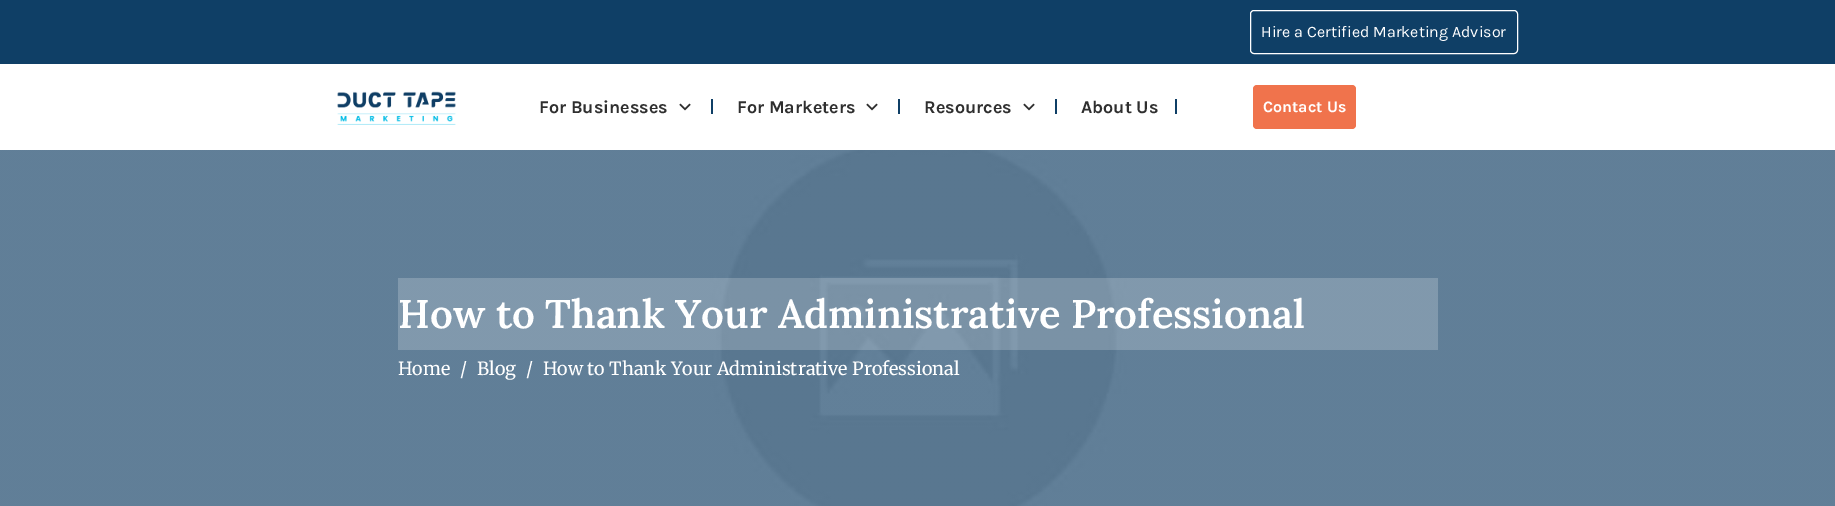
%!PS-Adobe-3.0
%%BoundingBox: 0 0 1835 506
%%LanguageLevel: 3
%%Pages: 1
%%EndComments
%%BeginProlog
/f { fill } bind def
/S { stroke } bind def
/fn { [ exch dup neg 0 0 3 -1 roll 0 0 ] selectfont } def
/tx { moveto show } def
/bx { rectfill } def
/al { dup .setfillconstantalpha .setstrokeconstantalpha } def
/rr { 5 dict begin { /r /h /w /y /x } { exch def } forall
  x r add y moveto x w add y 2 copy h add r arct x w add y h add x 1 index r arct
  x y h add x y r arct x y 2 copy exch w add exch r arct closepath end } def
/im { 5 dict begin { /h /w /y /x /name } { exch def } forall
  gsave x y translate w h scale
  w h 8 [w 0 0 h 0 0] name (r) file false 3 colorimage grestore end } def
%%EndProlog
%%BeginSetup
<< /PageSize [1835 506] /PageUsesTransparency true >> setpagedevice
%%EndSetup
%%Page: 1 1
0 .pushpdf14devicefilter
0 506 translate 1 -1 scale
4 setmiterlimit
1 setgray
0 0 1835 506 bx
0.059 0.247 0.4 setrgbcolor
0 0 1835 64 bx
1 setgray
1250.5 10.5 267 43 3.5 rr S
/Karla-Regular 16 fn
(Hire a Certified Marketing Advisor) 1261 37 tx
(image0.raw) 337 91 119 34 im
/Karla-Bold 18 fn
0.184 setgray
(For Businesses) 539 113 tx
(image1.raw) 679 103 12 8 im
0.059 0.247 0.4 setrgbcolor
711 99 2 15 bx
0.184 setgray
(For Marketers) 737 113 tx
(image1.raw) 866 103 12 8 im
0.059 0.247 0.4 setrgbcolor
898 99 2 15 bx
0.184 setgray
(Resources) 924 113 tx
(image1.raw) 1023 103 12 8 im
0.059 0.247 0.4 setrgbcolor
1055 99 2 15 bx
0.184 setgray
(About Us) 1081 113 tx
0.059 0.247 0.4 setrgbcolor
1175 99 2 15 bx
0.941 0.451 0.298 setrgbcolor
1253 85 103 44 4 rr f
/Karla-Bold 16 fn
1 setgray
(Contact Us) 1263 112 tx
(image2.raw) 0 150 1835 356 im
0.2 al
398 278 1040 72 bx
/Lora-SemiBold 40 fn
1 al
(How to Thank Your Administrative Professional) 398 328 tx
/Merriweather-Regular 18 fn
(Home) 398 375 tx
(/) 460 375 tx
(Blog) 477 375 tx
(/) 526 375 tx
(How to Thank Your Administrative Professional) 543 375 tx
.poppdf14devicefilter showpage
%%EOF
